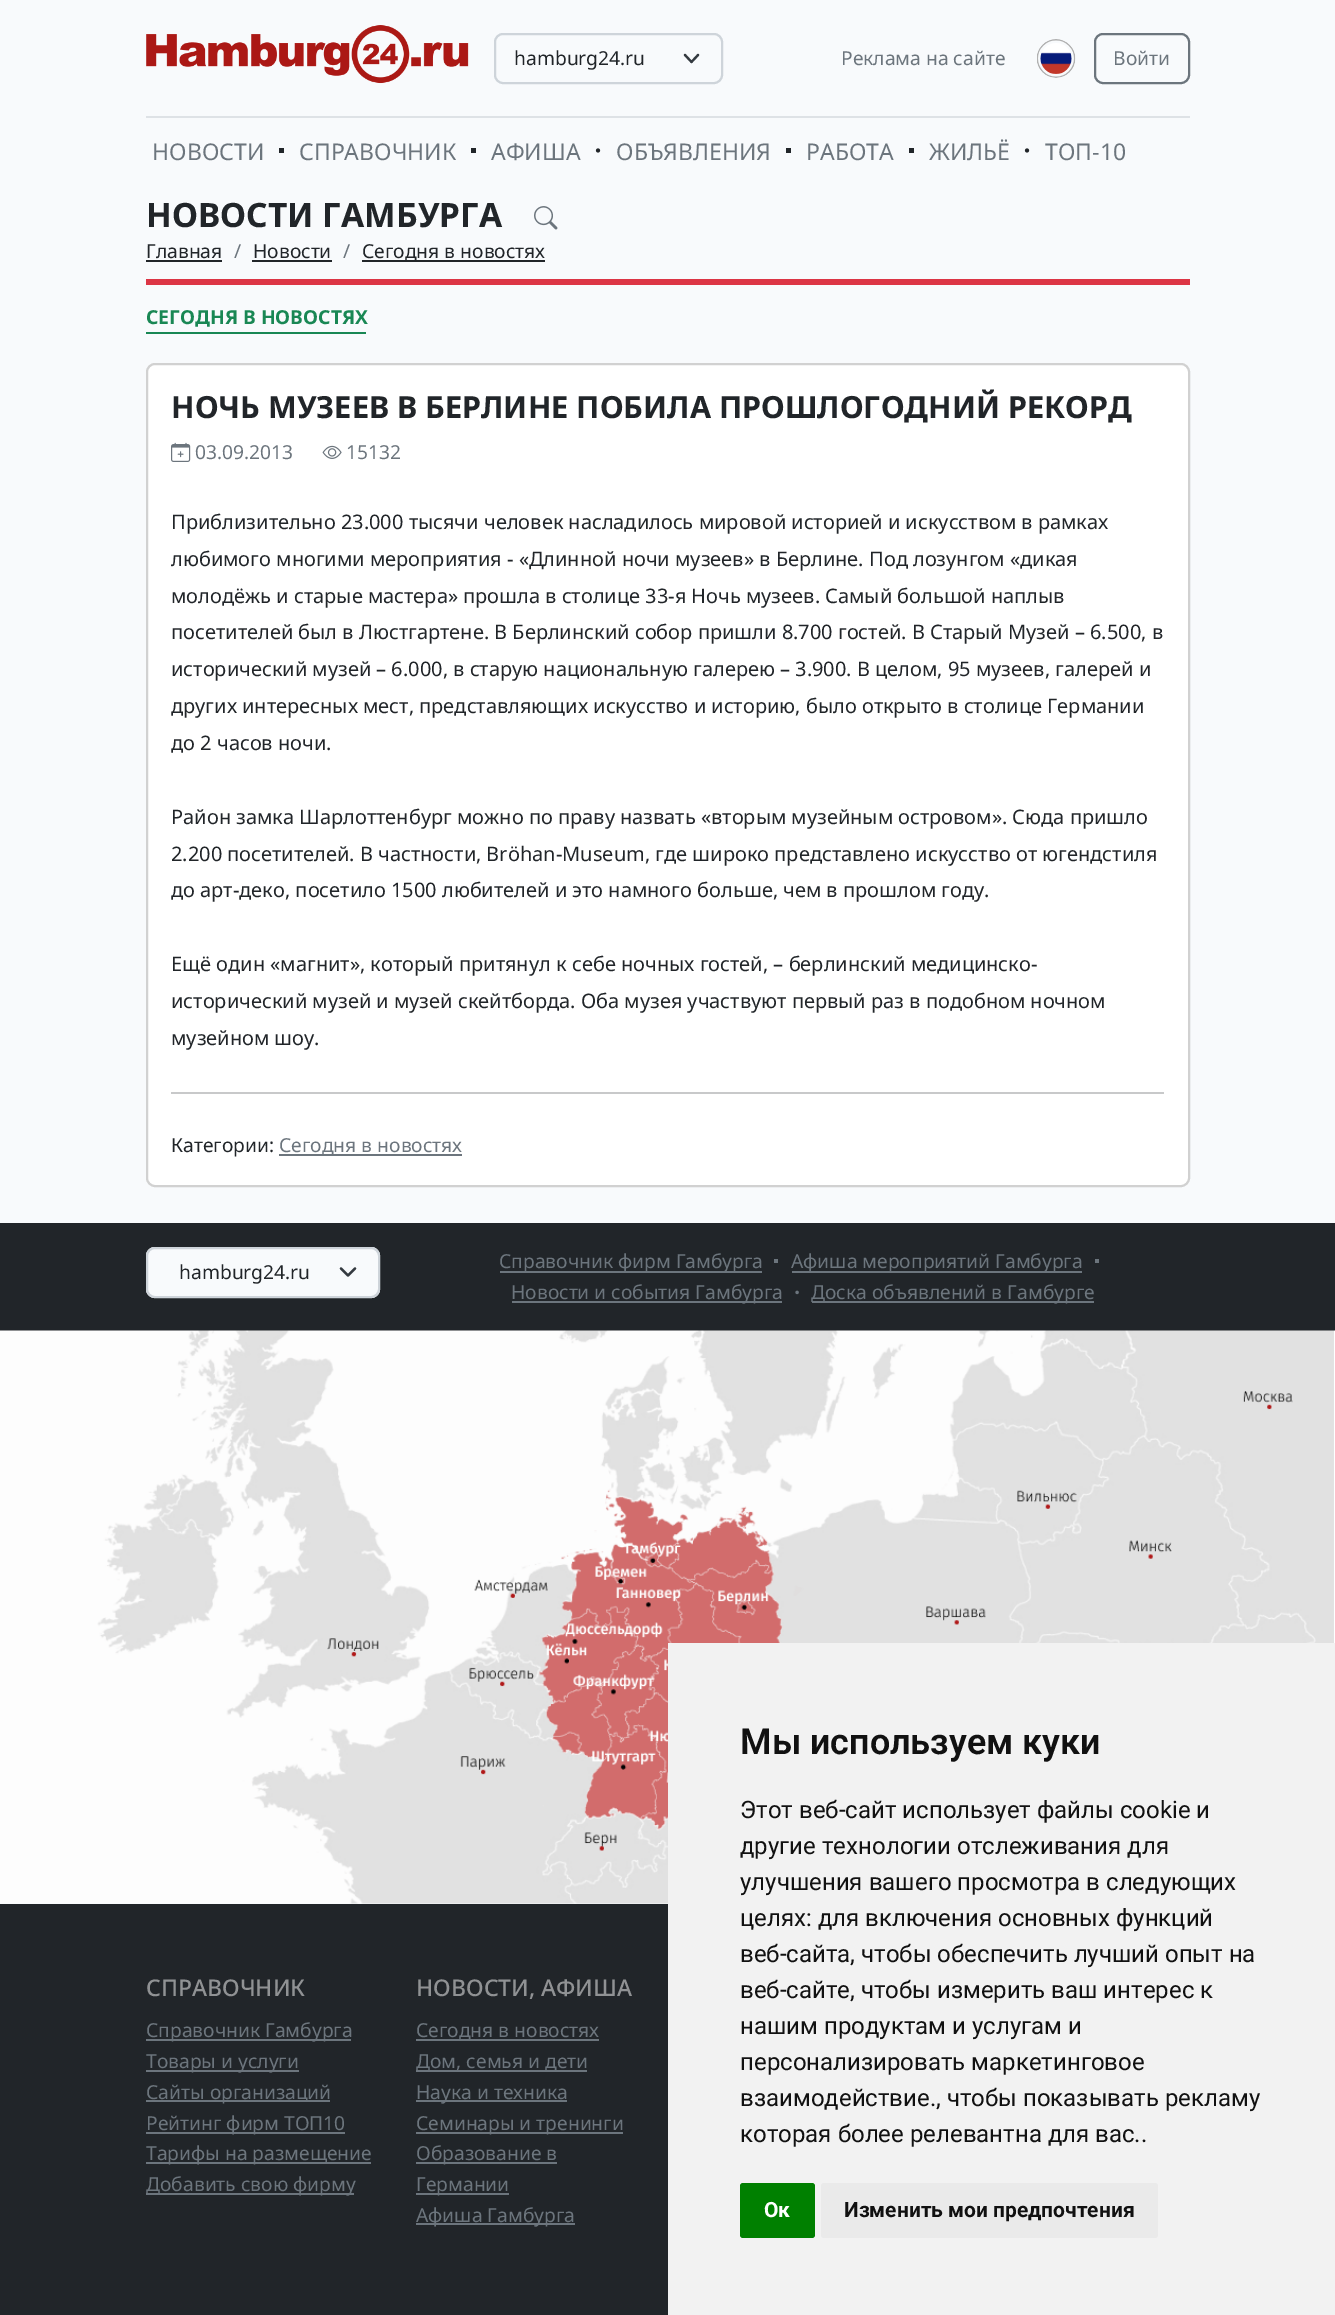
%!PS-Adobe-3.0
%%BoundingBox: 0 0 1335 2315
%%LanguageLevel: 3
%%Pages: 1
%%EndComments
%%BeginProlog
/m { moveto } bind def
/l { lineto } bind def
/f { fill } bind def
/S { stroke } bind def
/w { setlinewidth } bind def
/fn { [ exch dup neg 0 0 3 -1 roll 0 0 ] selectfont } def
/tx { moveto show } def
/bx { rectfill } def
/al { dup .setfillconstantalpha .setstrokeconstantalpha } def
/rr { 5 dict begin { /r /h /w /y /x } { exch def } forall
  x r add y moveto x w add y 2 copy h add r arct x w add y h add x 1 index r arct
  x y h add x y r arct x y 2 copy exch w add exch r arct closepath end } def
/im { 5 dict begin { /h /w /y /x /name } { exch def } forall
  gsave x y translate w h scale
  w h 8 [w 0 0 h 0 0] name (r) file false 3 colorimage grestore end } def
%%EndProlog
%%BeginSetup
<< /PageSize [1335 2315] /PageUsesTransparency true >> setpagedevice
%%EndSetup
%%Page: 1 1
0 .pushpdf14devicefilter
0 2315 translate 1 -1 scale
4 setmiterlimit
0.973 0.98 0.988 setrgbcolor
0 0 1335 2315 bx
0.871 0.886 0.902 setrgbcolor
146 116 1044 2 bx
(image0.raw) 146 25 323 59 im
0.204 0.227 0.251 setrgbcolor
2.2 w
1 setlinecap
1 setlinejoin
685 55 m 691.5 62 l 698 55 l S
0.808 0.831 0.855 setrgbcolor
2 w
0 setlinecap
0 setlinejoin
495 34 227 49 8 rr S
/NotoSans-Regular 19.25 fn
0.129 0.145 0.161 setrgbcolor
(hamburg24.ru) 514 65 tx
0.424 0.459 0.49 setrgbcolor
(Реклама на сайте) 841 65 tx
(image1.raw) 1037 39 39 39 im
1095 34 94 49 8 rr S
(Войти) 1113 65 tx
/NotoSans-Regular 23 fn
(НОВОСТИ) 152 160 tx
0.129 0.145 0.161 setrgbcolor
279 148 5 5 bx
0.424 0.459 0.49 setrgbcolor
(СПРАВОЧНИК) 299 160 tx
0.129 0.145 0.161 setrgbcolor
471 148 5 5 bx
0.424 0.459 0.49 setrgbcolor
(АФИША) 491 160 tx
(image2.raw) 595 148 6 5 im
(ОБЪЯВЛЕНИЯ) 616 160 tx
0.129 0.145 0.161 setrgbcolor
786 148 5 5 bx
0.424 0.459 0.49 setrgbcolor
(РАБОТА) 806 160 tx
0.129 0.145 0.161 setrgbcolor
909 148 5 5 bx
0.424 0.459 0.49 setrgbcolor
(ЖИЛЬЁ) 929 160 tx
(image2.raw) 1024 148 6 5 im
(ТОП-10) 1045 160 tx
0.863 0.208 0.271 setrgbcolor
146 279 1044 6 bx
/NotoSans-Bold 33.5 fn
0.129 0.145 0.161 setrgbcolor
(НОВОСТИ ГАМБУРГА) 146 227 tx
(image3.raw) 534 206 24 24 im
/NotoSans-Regular 19.25 fn
(Главная) 146 258 tx
146 260 76 2 bx
0.424 0.459 0.49 setrgbcolor
(/) 234 258 tx
0.129 0.145 0.161 setrgbcolor
(Новости) 253 258 tx
252 260 80 2 bx
0.424 0.459 0.49 setrgbcolor
(/) 343 258 tx
0.129 0.145 0.161 setrgbcolor
362 260 183 2 bx
(Сегодня в новостях) 362 258 tx
0.098 0.529 0.329 setrgbcolor
146 332 220 2 bx
/NotoSans-Bold 19.25 fn
(СЕГОДНЯ В НОВОСТЯХ) 146 324 tx
1 setgray
146 363 1044 824 9 rr f
0.18 al
0 setgray
147 364 1042 822 8 rr S
/NotoSans-Bold 30.55 fn
1 al
0.129 0.145 0.161 setrgbcolor
(НОЧЬ МУЗЕЕВ В БЕРЛИНЕ ПОБИЛА ПРОШЛОГОДНИЙ РЕКОРД) 171 418 tx
(image4.raw) 171 442 20 20 im
/NotoSans-Regular 19.25 fn
0.424 0.459 0.49 setrgbcolor
(03.09.2013) 195 459 tx
(image5.raw) 322 445 20 14 im
(15132) 346 459 tx
/NotoSans-Regular 20 fn
0.129 0.145 0.161 setrgbcolor
(Приблизительно 23.000 тысячи человек насладилось мировой историей и искусством в рамках) 171 529 tx
(любимого многими мероприятия - «Длинной ночи музеев» в Берлине. Под лозунгом «дикая) 171 566 tx
(молодёжь и старые мастера» прошла в столице 33-я Ночь музеев. Самый большой наплыв) 171 603 tx
(посетителей был в Люстгартене. В Берлинский собор пришли 8.700 гостей. В Старый Музей – 6.500, в) 171 639 tx
(исторический музей – 6.000, в старую национальную галерею – 3.900. В целом, 95 музеев, галерей и) 171 676 tx
(других интересных мест, представляющих искусство и историю, было открыто в столице Германии) 171 713 tx
(до 2 часов ночи.) 171 750 tx
(Район замка Шарлоттенбург можно по праву назвать «вторым музейным островом». Сюда пришло) 171 824 tx
(2.200 посетителей. В частности, Bröhan-Museum, где широко представлено искусство от югендстиля) 171 861 tx
(до арт-деко, посетило 1500 любителей и это намного больше, чем в прошлом году.) 171 897 tx
(Ещё один «магнит», который притянул к себе ночных гостей, – берлинский медицинско-) 171 971 tx
(исторический музей и музей скейтборда. Оба музея участвуют первый раз в подобном ночном) 171 1008 tx
(музейном шоу.) 171 1045 tx
0.784 0.788 0.792 setrgbcolor
171 1092 993 2 bx
/NotoSans-Regular 19.25 fn
0.129 0.145 0.161 setrgbcolor
(Категории:) 171 1152 tx
0.424 0.459 0.49 setrgbcolor
279 1154 183 2 bx
(Сегодня в новостях) 279 1152 tx
0.129 0.145 0.161 setrgbcolor
0 1223 1335 108 bx
0.973 0.98 0.988 setrgbcolor
146 1247 234 51 9 rr f
0.204 0.227 0.251 setrgbcolor
2.2 w
1 setlinecap
1 setlinejoin
341 1268.5 m 348 1275.5 l 355 1268.5 l S
0.808 0.831 0.855 setrgbcolor
2 w
0 setlinecap
0 setlinejoin
147 1248 232 49 8 rr S
0.129 0.145 0.161 setrgbcolor
(hamburg24.ru) 179 1279 tx
0.424 0.459 0.49 setrgbcolor
500 1271 262 2 bx
(Справочник фирм Гамбурга) 499 1268 tx
774 1259 4 4 bx
792 1271 290 2 bx
(Афиша мероприятий Гамбурга) 791 1268 tx
1095 1259 4 4 bx
512 1301 270 2 bx
(Новости и события Гамбурга) 511 1299 tx
(image6.raw) 795 1290 4 5 im
812 1301 282 2 bx
(Доска объявлений в Гамбурге) 811 1299 tx
(image7.raw) 0 1330 1335 574 im
0.129 0.145 0.161 setrgbcolor
0 1904 668 411 bx
/NotoSans-Medium 23 fn
0.565 0.573 0.58 setrgbcolor
(СПРАВОЧНИК) 146 1996 tx
0.424 0.459 0.49 setrgbcolor
146 2039 205 2 bx
/NotoSans-Regular 19.25 fn
(Справочник Гамбурга) 146 2037 tx
146 2070 153 2 bx
(Товары и услуги) 146 2068 tx
146 2100 184 2 bx
(Сайты организаций) 146 2099 tx
146 2132 199 2 bx
(Рейтинг фирм ТОП10) 146 2130 tx
146 2162 225 2 bx
(Тарифы на размещение) 146 2160 tx
146 2193 208 2 bx
(Добавить свою фирму) 146 2191 tx
/NotoSans-Medium 23 fn
0.565 0.573 0.58 setrgbcolor
(НОВОСТИ, АФИША) 416 1996 tx
0.424 0.459 0.49 setrgbcolor
416 2039 183 2 bx
/NotoSans-Regular 19.25 fn
(Сегодня в новостях) 416 2037 tx
416 2070 171 2 bx
(Дом, семья и дети) 416 2068 tx
416 2100 151 2 bx
(Наука и техника) 416 2099 tx
416 2132 207 2 bx
(Семинары и тренинги) 416 2130 tx
416 2162 141 2 bx
(Образование в) 416 2160 tx
416 2193 93 2 bx
(Германии) 416 2191 tx
416 2223 159 2 bx
(Афиша Гамбурга) 416 2222 tx
0.949 setgray
668 1643 667 672 bx
/Roboto-SemiBold 36 fn
0.067 setgray
(Мы используем куки) 740 1754 tx
/Roboto-Regular 24 fn
(Этот веб-сайт использует файлы cookie и) 740 1818 tx
(другие технологии отслеживания для) 740 1854 tx
(улучшения вашего просмотра в следующих) 740 1890 tx
(целях: для включения основных функций) 740 1926 tx
(веб-сайта, чтобы обеспечить лучший опыт на) 740 1962 tx
(веб-сайте, чтобы измерить ваш интерес к) 740 1998 tx
(нашим продуктам и услугам и) 740 2034 tx
(персонализировать маркетинговое) 740 2070 tx
(взаимодействие., чтобы показывать рекламу) 740 2106 tx
(которая более релевантна для вас..) 740 2142 tx
0 0.502 0 setrgbcolor
740 2183 75 55 3 rr f
/Roboto-Bold 21 fn
1 setgray
(Ок) 764 2217 tx
0.918 setgray
821 2183 337 55 3 rr f
0.067 setgray
(Изменить мои предпочтения) 844 2217 tx
.poppdf14devicefilter showpage
%%EOF
